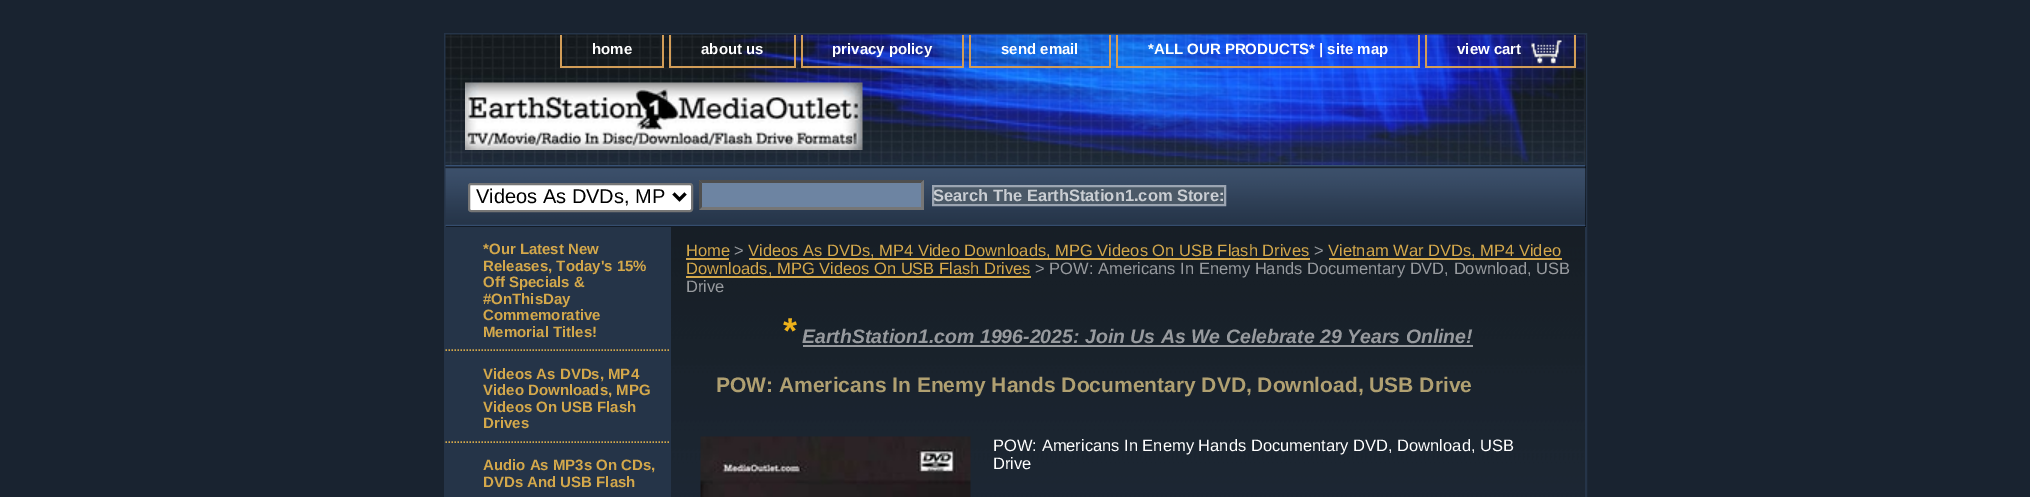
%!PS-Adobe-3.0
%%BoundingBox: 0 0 2030 497
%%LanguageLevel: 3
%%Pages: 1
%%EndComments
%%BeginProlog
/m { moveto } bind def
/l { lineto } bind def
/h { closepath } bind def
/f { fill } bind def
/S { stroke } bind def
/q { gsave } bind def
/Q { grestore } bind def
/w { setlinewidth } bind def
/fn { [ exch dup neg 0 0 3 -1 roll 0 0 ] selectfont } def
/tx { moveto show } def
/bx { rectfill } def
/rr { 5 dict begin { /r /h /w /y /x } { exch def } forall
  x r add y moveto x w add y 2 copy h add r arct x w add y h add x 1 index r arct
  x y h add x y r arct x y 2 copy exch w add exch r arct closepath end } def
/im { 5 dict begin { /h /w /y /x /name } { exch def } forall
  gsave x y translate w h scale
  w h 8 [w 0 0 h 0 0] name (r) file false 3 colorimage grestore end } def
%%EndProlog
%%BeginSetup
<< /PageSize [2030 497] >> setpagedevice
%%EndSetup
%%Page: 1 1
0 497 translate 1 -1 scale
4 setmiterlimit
0.098 0.137 0.188 setrgbcolor
0 0 2030 497 bx
(image0.raw) 671 227 914 270 im
0.145 0.204 0.282 setrgbcolor
2 w
445 34 1141 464 rectstroke
0.082 0.11 0.133 setrgbcolor
1585 35 1 130 bx
(image1.raw) 445 34 1141 131 im
0.824 0.616 0.345 setrgbcolor
662 35 2 33 bx
560 66 103 2 bx
560 35 2 33 bx
/LiberationSans-Bold 15 fn
1 setgray
(home) 592 54 tx
0.824 0.616 0.345 setrgbcolor
794 35 2 33 bx
669 66 126 2 bx
669 35 2 33 bx
1 setgray
(about us) 701 54 tx
0.824 0.616 0.345 setrgbcolor
962 35 2 33 bx
801 66 162 2 bx
801 35 2 33 bx
1 setgray
(privacy policy) 832 54 tx
0.824 0.616 0.345 setrgbcolor
1109 35 2 33 bx
969 66 141 2 bx
969 35 2 33 bx
1 setgray
(send email) 1001 54 tx
0.824 0.616 0.345 setrgbcolor
1418 35 2 33 bx
1116 66 303 2 bx
1116 35 2 33 bx
1 setgray
(*ALL OUR PRODUCTS* | site map) 1148 54 tx
0.824 0.616 0.345 setrgbcolor
1574 35 2 33 bx
1425 66 150 2 bx
1425 35 2 33 bx
(image2.raw) 1531 40 31 24 im
1 setgray
(view cart) 1457 54 tx
(image3.raw) 465 82 398 68 im
0 setgray
446 165 1140 62 bx
(image4.raw) 445 165 1141 62 im
1 setgray
469 184 223 27 2 rr q f Q
0.463 setgray
S
0 setgray
3 w
673.5 193.5 m 679.5 199.5 l 685.5 193.5 l S
/LiberationSans-Regular 20 fn
(Videos As DVDs, MP) 476 203 tx
0.427 0.518 0.635 setrgbcolor
699 180 225 30 bx
0.31 setgray
699 180 m 924 180 l 921 183 l 702 183 l h f
0.463 setgray
924 180 m 924 210 l 921 207 l 921 183 l h f
924 210 m 699 210 l 702 207 l 921 207 l h f
0.31 setgray
699 210 m 699 180 l 702 183 l 702 207 l h f
0.294 0.349 0.404 setrgbcolor
933 186 m 1225 186 l 1225 205 l 933 205 l h q f Q
0.612 0.647 0.698 setrgbcolor
2 w
S
/LiberationSans-Bold 16.5 fn
0.792 0.808 0.827 setrgbcolor
(Search The EarthStation1.com Store:) 933 201 tx
0.145 0.204 0.282 setrgbcolor
446 227 225 270 bx
0.831 0.659 0.294 setrgbcolor
1.5 w
[1.5 1.5] 0 setdash
445.5 350 m 670.5 350 l S
/LiberationSans-Bold 15 fn
(*Our Latest New) 483 254 tx
(Releases, Today's 15%) 483 271 tx
(Off Specials &) 483 287 tx
(#OnThisDay) 483 304 tx
(Commemorative) 483 320 tx
(Memorial Titles!) 483 337 tx
445.5 442 m 670.5 442 l S
(Videos As DVDs, MP4) 483 379 tx
(Video Downloads, MPG) 483 395 tx
(Videos On USB Flash) 483 412 tx
(Drives) 483 428 tx
(Audio As MP3s On CDs,) 483 470 tx
(DVDs And USB Flash) 483 487 tx
/LiberationSans-Regular 16.5 fn
(Home) 686 256 tx
686 258 43 2 bx
0.592 0.604 0.62 setrgbcolor
(>) 734 256 tx
0.831 0.659 0.294 setrgbcolor
749 258 561 2 bx
(Videos As DVDs, MP4 Video Downloads, MPG Videos On USB Flash Drives) 748 256 tx
0.592 0.604 0.62 setrgbcolor
(>) 1314 256 tx
0.831 0.659 0.294 setrgbcolor
1329 258 233 2 bx
(Vietnam War DVDs, MP4 Video) 1328 256 tx
686 276 345 2 bx
(Downloads, MPG Videos On USB Flash Drives) 686 274 tx
0.592 0.604 0.62 setrgbcolor
(> POW: Americans In Enemy Hands Documentary DVD, Download, USB) 1035 274 tx
(Drive) 686 292 tx
/LiberationSans-Bold 36 fn
0.929 0.694 0.102 setrgbcolor
(*) 783 343 tx
/LiberationSans-BoldItalic 19.5 fn
0.592 0.604 0.62 setrgbcolor
(EarthStation1.com 1996-2025: Join Us As We Celebrate 29 Years Online!) 802 343 tx
803 345 670 2 bx
/LiberationSans-Bold 21 fn
0.69 0.627 0.443 setrgbcolor
(POW: Americans In Enemy Hands Documentary DVD, Download, USB Drive) 716 392 tx
(image5.raw) 700 436 271 61 im
/LiberationSans-Regular 16.5 fn
1 setgray
(POW: Americans In Enemy Hands Documentary DVD, Download, USB) 993 451 tx
(Drive) 993 469 tx
showpage
%%EOF
